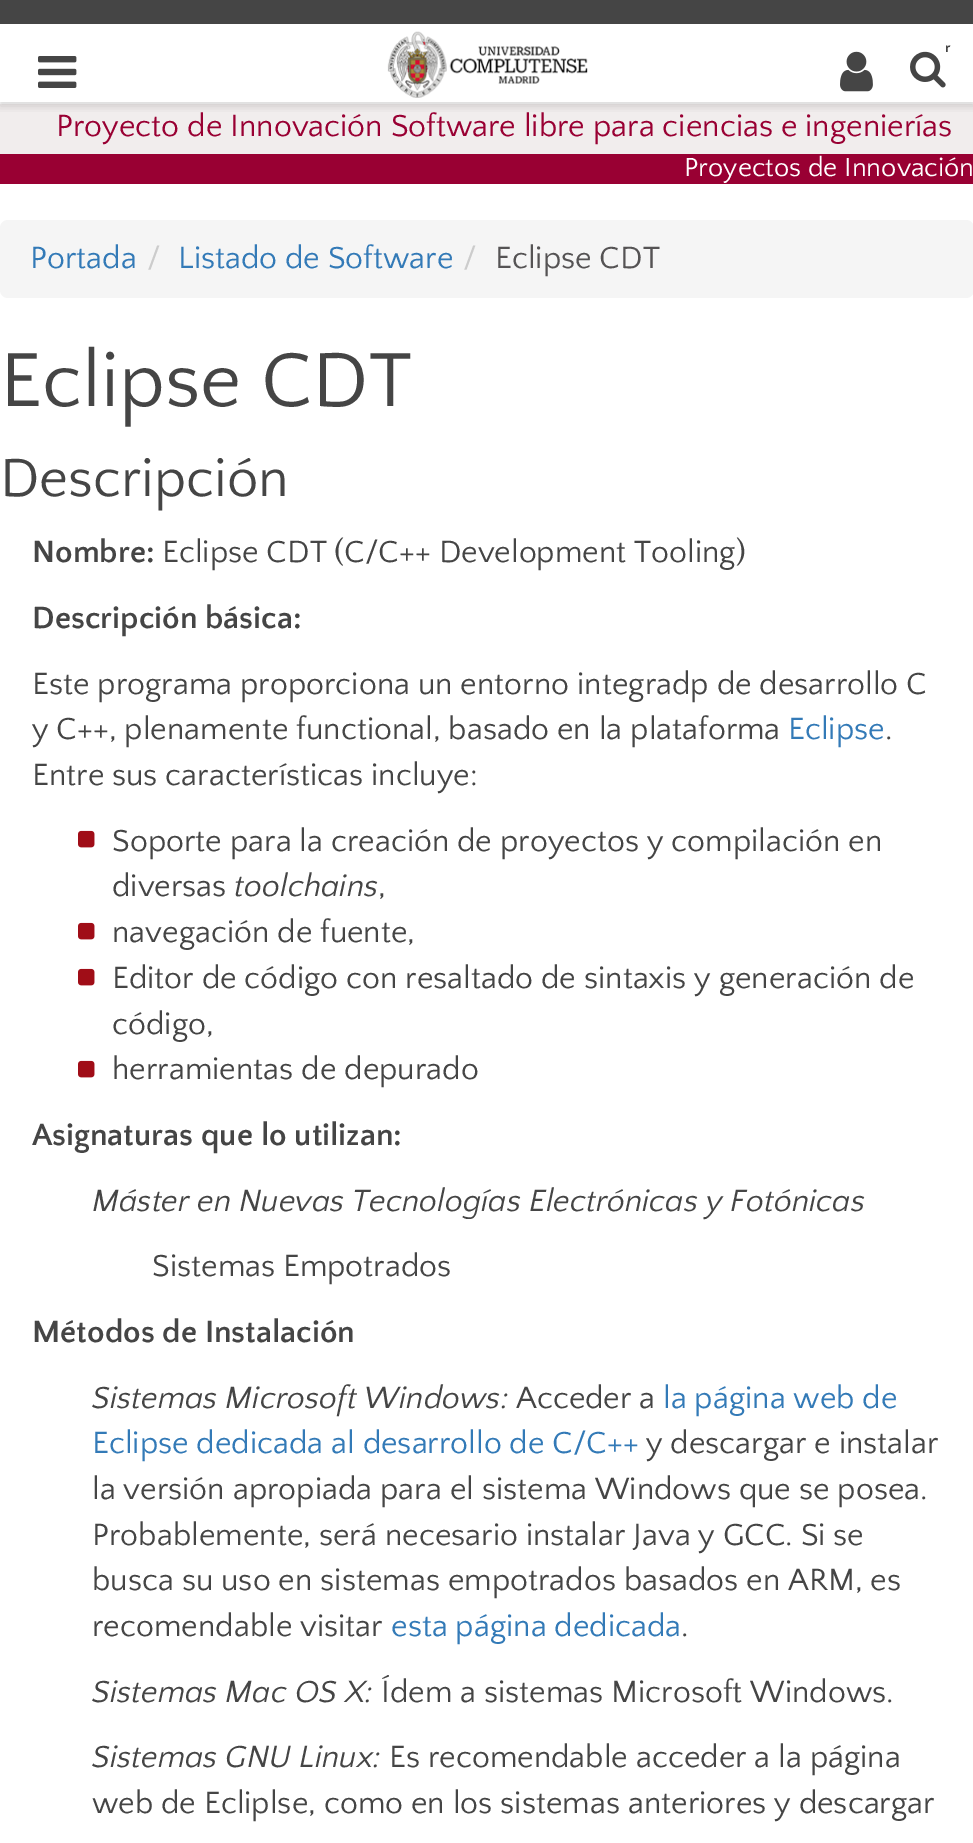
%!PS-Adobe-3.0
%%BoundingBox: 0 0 973 1843
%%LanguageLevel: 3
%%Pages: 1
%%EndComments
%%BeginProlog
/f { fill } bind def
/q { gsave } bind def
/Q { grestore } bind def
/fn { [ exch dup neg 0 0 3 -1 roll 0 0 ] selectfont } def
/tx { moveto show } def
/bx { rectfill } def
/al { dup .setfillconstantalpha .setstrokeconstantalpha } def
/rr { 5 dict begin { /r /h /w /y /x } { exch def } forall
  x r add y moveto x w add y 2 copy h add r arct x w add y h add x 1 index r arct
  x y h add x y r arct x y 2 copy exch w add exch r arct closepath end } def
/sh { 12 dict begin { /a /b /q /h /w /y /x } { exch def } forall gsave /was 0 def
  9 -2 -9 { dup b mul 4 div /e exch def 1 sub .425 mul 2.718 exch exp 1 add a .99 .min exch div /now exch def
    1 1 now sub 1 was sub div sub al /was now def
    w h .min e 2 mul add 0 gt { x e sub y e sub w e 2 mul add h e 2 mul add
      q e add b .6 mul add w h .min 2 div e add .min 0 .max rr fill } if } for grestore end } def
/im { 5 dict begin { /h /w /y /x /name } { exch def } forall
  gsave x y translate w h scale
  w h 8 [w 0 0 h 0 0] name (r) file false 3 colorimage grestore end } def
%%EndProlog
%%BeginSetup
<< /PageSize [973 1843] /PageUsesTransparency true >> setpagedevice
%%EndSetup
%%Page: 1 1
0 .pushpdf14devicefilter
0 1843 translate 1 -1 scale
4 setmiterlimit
1 setgray
0 0 973 1843 bx
0.945 0.929 0.929 setrgbcolor
0 104 973 50 bx
q
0 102 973 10 rectclip
0.196 setgray
0 28 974 78 0 5 0.2 sh
Q
(image0.raw) 38 56 39 32 im
0.271 setgray
0 0 973 24 bx
/NotoSans-Bold 12 fn
(r) 945 52 tx
1 setgray
910 40 36 54 4 rr f
(image1.raw) 910 51 36 37 im
(image2.raw) 840 51 33 41 im
(image3.raw) 387 31 201 67 im
/QuattrocentoSans-Regular 32 fn
0.6 0 0.2 setrgbcolor
(Proyecto de Innovación Software libre para ciencias e ingenierías) 56 136 tx
0 154 973 30 bx
/QuattrocentoSans-Regular 27.25 fn
1 setgray
(Proyectos de Innovación) 684 176 tx
0.961 setgray
0 220 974 78 8 rr f
/QuattrocentoSans-Regular 32 fn
0.2 0.478 0.718 setrgbcolor
(Portada) 30 268 tx
0.8 setgray
(/) 147 268 tx
0.2 0.478 0.718 setrgbcolor
(Listado de Software) 178 268 tx
0.8 setgray
(/) 463 268 tx
0.333 0.325 0.329 setrgbcolor
(Eclipse CDT) 495 268 tx
/QuattrocentoSans-Regular 80 fn
0.271 setgray
(Eclipse CDT) 0 406 tx
/QuattrocentoSans-Regular 56 fn
(Descripción) 0 496 tx
/QuattrocentoSans-Bold 32 fn
(Nombre:) 32 562 tx
/QuattrocentoSans-Regular 32 fn
(Eclipse CDT \(C/C++ Development Tooling\)) 162 562 tx
/QuattrocentoSans-Bold 32 fn
(Descripción básica:) 32 628 tx
/QuattrocentoSans-Regular 32 fn
(Este programa proporciona un entorno integradp de desarrollo C) 32 694 tx
(y C++, plenamente functional, basado en la plataforma) 32 739 tx
0.2 0.478 0.718 setrgbcolor
(Eclipse) 788 739 tx
0.271 setgray
(.) 885 739 tx
(Entre sus características incluye:) 32 785 tx
(image4.raw) 78 830 17 18 im
(Soporte para la creación de proyectos y compilación en) 112 851 tx
(diversas) 112 896 tx
/QuattrocentoSans-Italic 32 fn
(toolchains) 234 896 tx
/QuattrocentoSans-Regular 32 fn
(,) 378 896 tx
(image4.raw) 78 922 17 18 im
(navegación de fuente,) 112 942 tx
(image4.raw) 78 968 17 18 im
(Editor de código con resaltado de sintaxis y generación de) 112 988 tx
(código,) 112 1034 tx
(image4.raw) 78 1060 17 18 im
(herramientas de depurado) 112 1079 tx
/QuattrocentoSans-Bold 32 fn
(Asignaturas que lo utilizan:) 32 1145 tx
/QuattrocentoSans-Italic 32 fn
(Máster en Nuevas Tecnologías Electrónicas y Fotónicas) 92 1211 tx
/QuattrocentoSans-Regular 32 fn
(Sistemas Empotrados) 152 1276 tx
/QuattrocentoSans-Bold 32 fn
(Métodos de Instalación) 32 1342 tx
/QuattrocentoSans-Italic 32 fn
(Sistemas Microsoft Windows:) 92 1408 tx
/QuattrocentoSans-Regular 32 fn
(Acceder a) 516 1408 tx
0.2 0.478 0.718 setrgbcolor
(la página web de) 663 1408 tx
(Eclipse dedicada al desarrollo de C/C++) 92 1453 tx
0.271 setgray
(y descargar e instalar) 646 1453 tx
(la versión apropiada para el sistema Windows que se posea.) 92 1499 tx
(Probablemente, será necesario instalar Java y GCC. Si se) 92 1545 tx
(busca su uso en sistemas empotrados basados en ARM, es) 92 1590 tx
(recomendable visitar) 92 1636 tx
0.2 0.478 0.718 setrgbcolor
(esta página dedicada) 391 1636 tx
0.271 setgray
(.) 681 1636 tx
/QuattrocentoSans-Italic 32 fn
(Sistemas Mac OS X:) 92 1702 tx
/QuattrocentoSans-Regular 32 fn
(Ídem a sistemas Microsoft Windows.) 381 1702 tx
/QuattrocentoSans-Italic 32 fn
(Sistemas GNU Linux:) 92 1767 tx
/QuattrocentoSans-Regular 32 fn
(Es recomendable acceder a la página) 389 1767 tx
(web de Ecliplse, como en los sistemas anteriores y descargar) 92 1813 tx
.poppdf14devicefilter showpage
%%EOF
